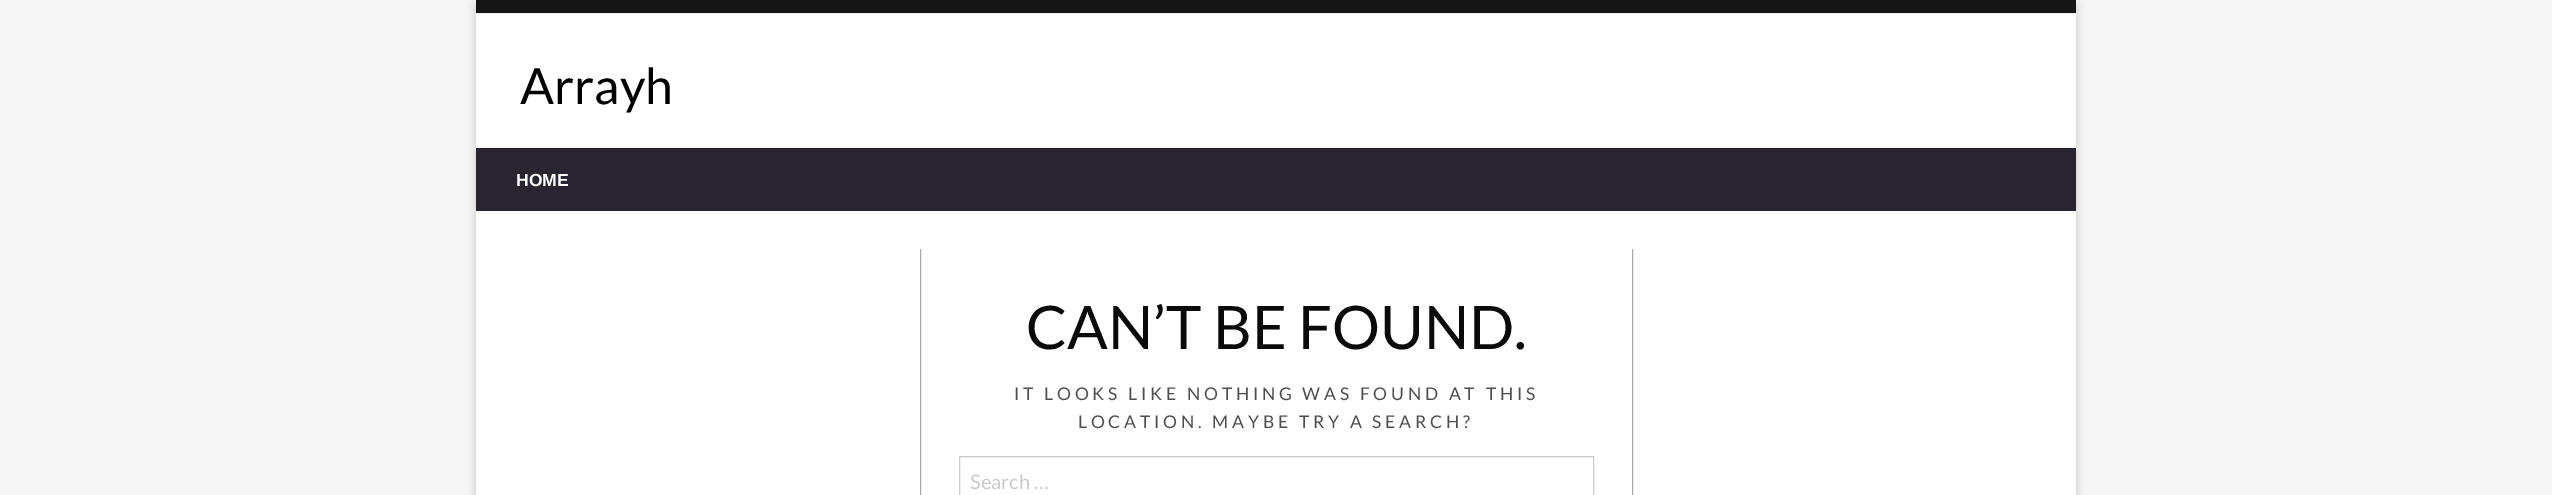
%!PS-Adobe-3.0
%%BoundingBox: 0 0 2552 495
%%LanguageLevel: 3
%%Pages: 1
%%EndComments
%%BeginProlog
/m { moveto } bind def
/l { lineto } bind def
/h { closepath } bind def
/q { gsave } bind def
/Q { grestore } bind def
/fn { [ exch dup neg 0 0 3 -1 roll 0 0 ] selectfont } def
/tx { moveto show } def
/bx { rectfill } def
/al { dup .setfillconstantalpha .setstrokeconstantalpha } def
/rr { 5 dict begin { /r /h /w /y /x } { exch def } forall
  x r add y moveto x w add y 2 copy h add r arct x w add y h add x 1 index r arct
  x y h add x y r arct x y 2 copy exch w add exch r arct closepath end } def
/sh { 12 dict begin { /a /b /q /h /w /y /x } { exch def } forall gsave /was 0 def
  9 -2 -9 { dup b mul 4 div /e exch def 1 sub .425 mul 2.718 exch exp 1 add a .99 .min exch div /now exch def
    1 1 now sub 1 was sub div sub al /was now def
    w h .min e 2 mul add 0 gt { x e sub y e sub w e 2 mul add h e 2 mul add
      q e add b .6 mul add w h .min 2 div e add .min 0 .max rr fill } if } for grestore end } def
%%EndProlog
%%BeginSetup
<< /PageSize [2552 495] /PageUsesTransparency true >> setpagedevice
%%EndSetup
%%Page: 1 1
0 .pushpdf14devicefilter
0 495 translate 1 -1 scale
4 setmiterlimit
0.969 setgray
0 0 2552 495 bx
q
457 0 m 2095 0 l 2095 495 l 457 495 l h 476 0 m 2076 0 l 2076 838 l 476 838 l h eoclip newpath
0 setgray
476 4 1600 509 0 6 0.09 sh
Q
q
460 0 m 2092 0 l 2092 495 l 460 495 l h 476 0 m 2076 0 l 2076 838 l 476 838 l h eoclip newpath
0 setgray
476 5 1600 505 0 5 0.1 sh
Q
0.086 setgray
476 0 1600 13 bx
0.925 0.929 0.906 setrgbcolor
476 13 1600 1 bx
1 setgray
476 14 1600 134 bx
/Lato-Regular 50 fn
0 setgray
(Arrayh) 520 104 tx
1 setgray
476 211 1600 284 bx
q
495 249 1563 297 rectclip
0.663 setgray
920.5 140.5 712 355 rectstroke
Q
0.86 al
0.027 0.004 0.059 setrgbcolor
476 149 1600 62 bx
1 al
0.141 0.122 0.165 setrgbcolor
476 148 1600 1 bx
/LiberationSans-Bold 17.5 fn
1 setgray
(HOME) 516 186 tx
/Lato-Regular 60 fn
0.039 setgray
(CAN’T BE FOUND.) 1026 349 tx
/Lato-Regular 17.5 fn
0.314 0.302 0.302 setrgbcolor
1014 400 m 3.75 0 (IT LOOKS LIKE NOTHING WAS FOUND AT THIS) ashow
1078 428 m 3.75 0 (LOCATION. MAYBE TRY A SEARCH?) ashow
0.792 setgray
959.5 456.5 634 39 rectstroke
/Lato-Regular 20 fn
(Search …) 970 489 tx
.poppdf14devicefilter showpage
%%EOF
